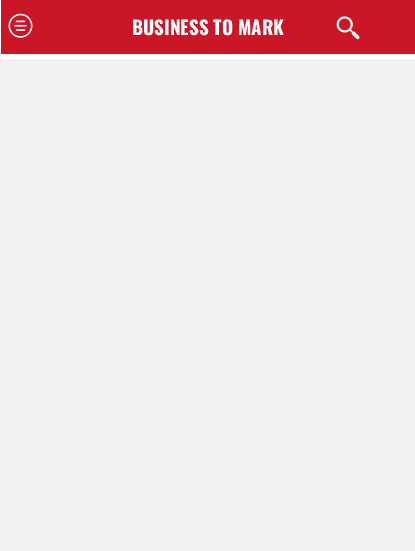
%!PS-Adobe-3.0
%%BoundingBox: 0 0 415 551
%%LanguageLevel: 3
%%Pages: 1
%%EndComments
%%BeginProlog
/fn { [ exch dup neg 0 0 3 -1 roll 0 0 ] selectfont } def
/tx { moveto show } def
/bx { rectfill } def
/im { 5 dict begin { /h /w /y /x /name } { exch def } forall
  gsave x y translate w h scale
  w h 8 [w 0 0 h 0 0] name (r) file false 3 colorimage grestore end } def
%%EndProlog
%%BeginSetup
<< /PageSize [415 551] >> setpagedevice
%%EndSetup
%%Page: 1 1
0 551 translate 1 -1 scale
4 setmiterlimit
1 setgray
0 0 415 551 bx
0.796 0.086 0.157 setrgbcolor
1 0 414 54 bx
(image0.raw) 8 13 25 25 im
/Oswald-Bold 19 fn
1 setgray
(BUSINESS TO MARK) 132 35 tx
(image1.raw) 336 16 24 24 im
0.945 setgray
0 59 415 492 bx
showpage
%%EOF
